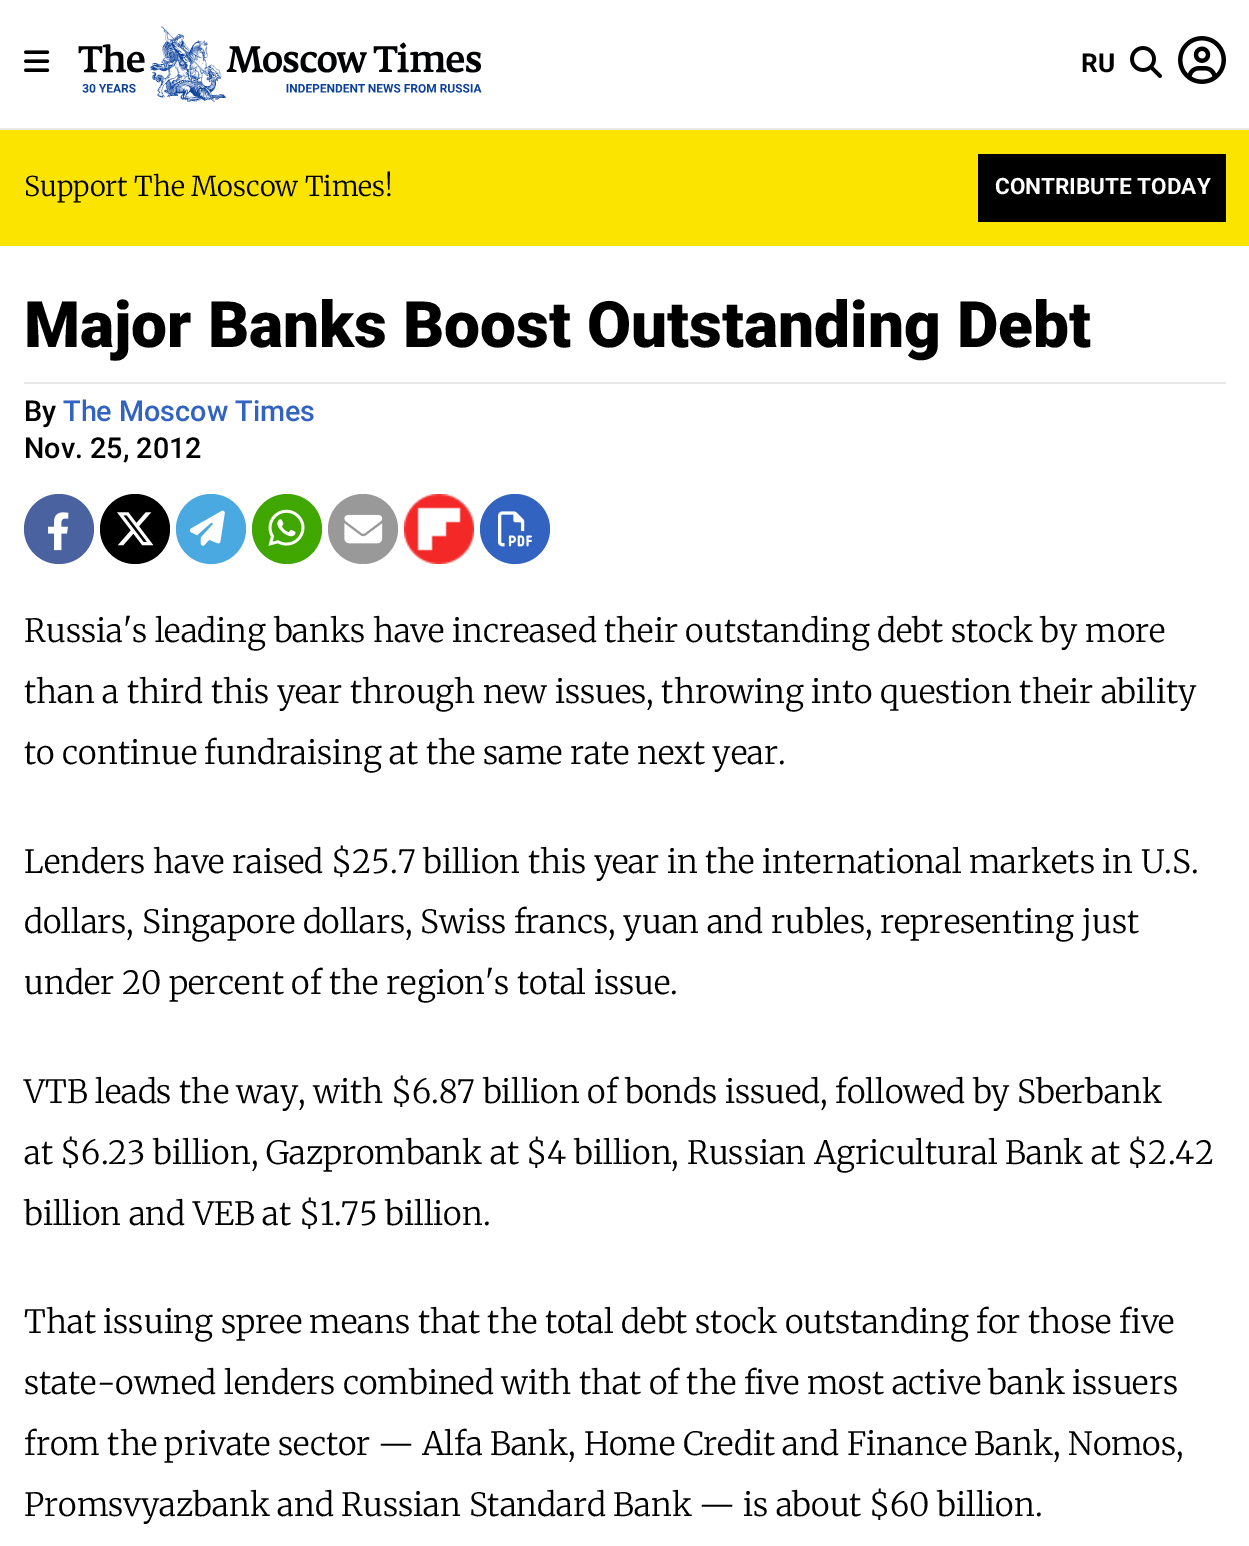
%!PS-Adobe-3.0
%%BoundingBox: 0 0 1249 1546
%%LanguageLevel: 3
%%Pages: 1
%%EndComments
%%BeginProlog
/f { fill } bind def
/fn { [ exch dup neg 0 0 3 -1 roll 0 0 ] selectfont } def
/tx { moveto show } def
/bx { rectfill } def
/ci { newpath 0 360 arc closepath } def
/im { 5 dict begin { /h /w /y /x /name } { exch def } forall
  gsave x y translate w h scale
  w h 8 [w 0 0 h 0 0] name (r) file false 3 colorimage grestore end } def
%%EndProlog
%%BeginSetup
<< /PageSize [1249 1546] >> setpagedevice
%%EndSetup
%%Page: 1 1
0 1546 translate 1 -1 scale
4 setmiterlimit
1 setgray
0 0 1249 1546 bx
0.91 setgray
0 128 1249 2 bx
(image0.raw) 24 50 26 22 im
(image1.raw) 78 26 404 76 im
/Roboto-Bold 26 fn
0 setgray
(RU) 1081 72 tx
(image2.raw) 1130 46 32 32 im
(image3.raw) 1178 36 48 48 im
0.984 0.898 0 setrgbcolor
0 130 1249 116 bx
/Merriweather-Light 27.25 fn
0 setgray
(Support The Moscow Times!) 24 196 tx
978 154 248 68 bx
/Roboto-Bold 22.5 fn
1 setgray
(CONTRIBUTE TODAY) 995 194 tx
/Roboto-Black 64 fn
0 setgray
(Major Banks Boost Outstanding Debt) 24 347 tx
0.91 setgray
24 382 1202 2 bx
/Roboto-Medium 28.75 fn
0 setgray
(By) 24 421 tx
0.196 0.388 0.753 setrgbcolor
(The Moscow Times) 63 421 tx
0 setgray
(Nov. 25, 2012) 24 458 tx
0.29 0.384 0.627 setrgbcolor
59 529 35 ci f
(image4.raw) 48 512 21 39 im
0 setgray
135 529 35 ci f
(image5.raw) 117 512 37 34 im
0.294 0.663 0.886 setrgbcolor
211 529 35 ci f
(image6.raw) 189 510 36 36 im
0.251 0.651 0 setrgbcolor
287 529 35 ci f
(image7.raw) 268 509 37 37 im
0.6 setgray
363 529 35 ci f
(image8.raw) 344 514 39 30 im
0.91 setgray
439 529 35 ci f
(image9.raw) 404 494 70 70 im
0.196 0.388 0.753 setrgbcolor
515 529 35 ci f
(image10.raw) 498 511 34 36 im
/Merriweather-Light 32 fn
0 setgray
(Russia's leading banks have increased their outstanding debt stock by more) 24 642 tx
(than a third this year through new issues, throwing into question their ability) 24 703 tx
(to continue fundraising at the same rate next year.) 24 764 tx
(Lenders have raised $25.7 billion this year in the international markets in U.S.) 24 873 tx
(dollars, Singapore dollars, Swiss francs, yuan and rubles, representing just) 24 933 tx
(under 20 percent of the region's total issue.) 24 994 tx
(VTB leads the way, with $6.87 billion of bonds issued, followed by Sberbank) 24 1103 tx
(at $6.23 billion, Gazprombank at $4 billion, Russian Agricultural Bank at $2.42) 24 1164 tx
(billion and VEB at $1.75 billion.) 24 1225 tx
(That issuing spree means that the total debt stock outstanding for those five) 24 1333 tx
(state-owned lenders combined with that of the five most active bank issuers) 24 1394 tx
(from the private sector — Alfa Bank, Home Credit and Finance Bank, Nomos,) 24 1455 tx
(Promsvyazbank and Russian Standard Bank — is about $60 billion.) 24 1516 tx
showpage
%%EOF
